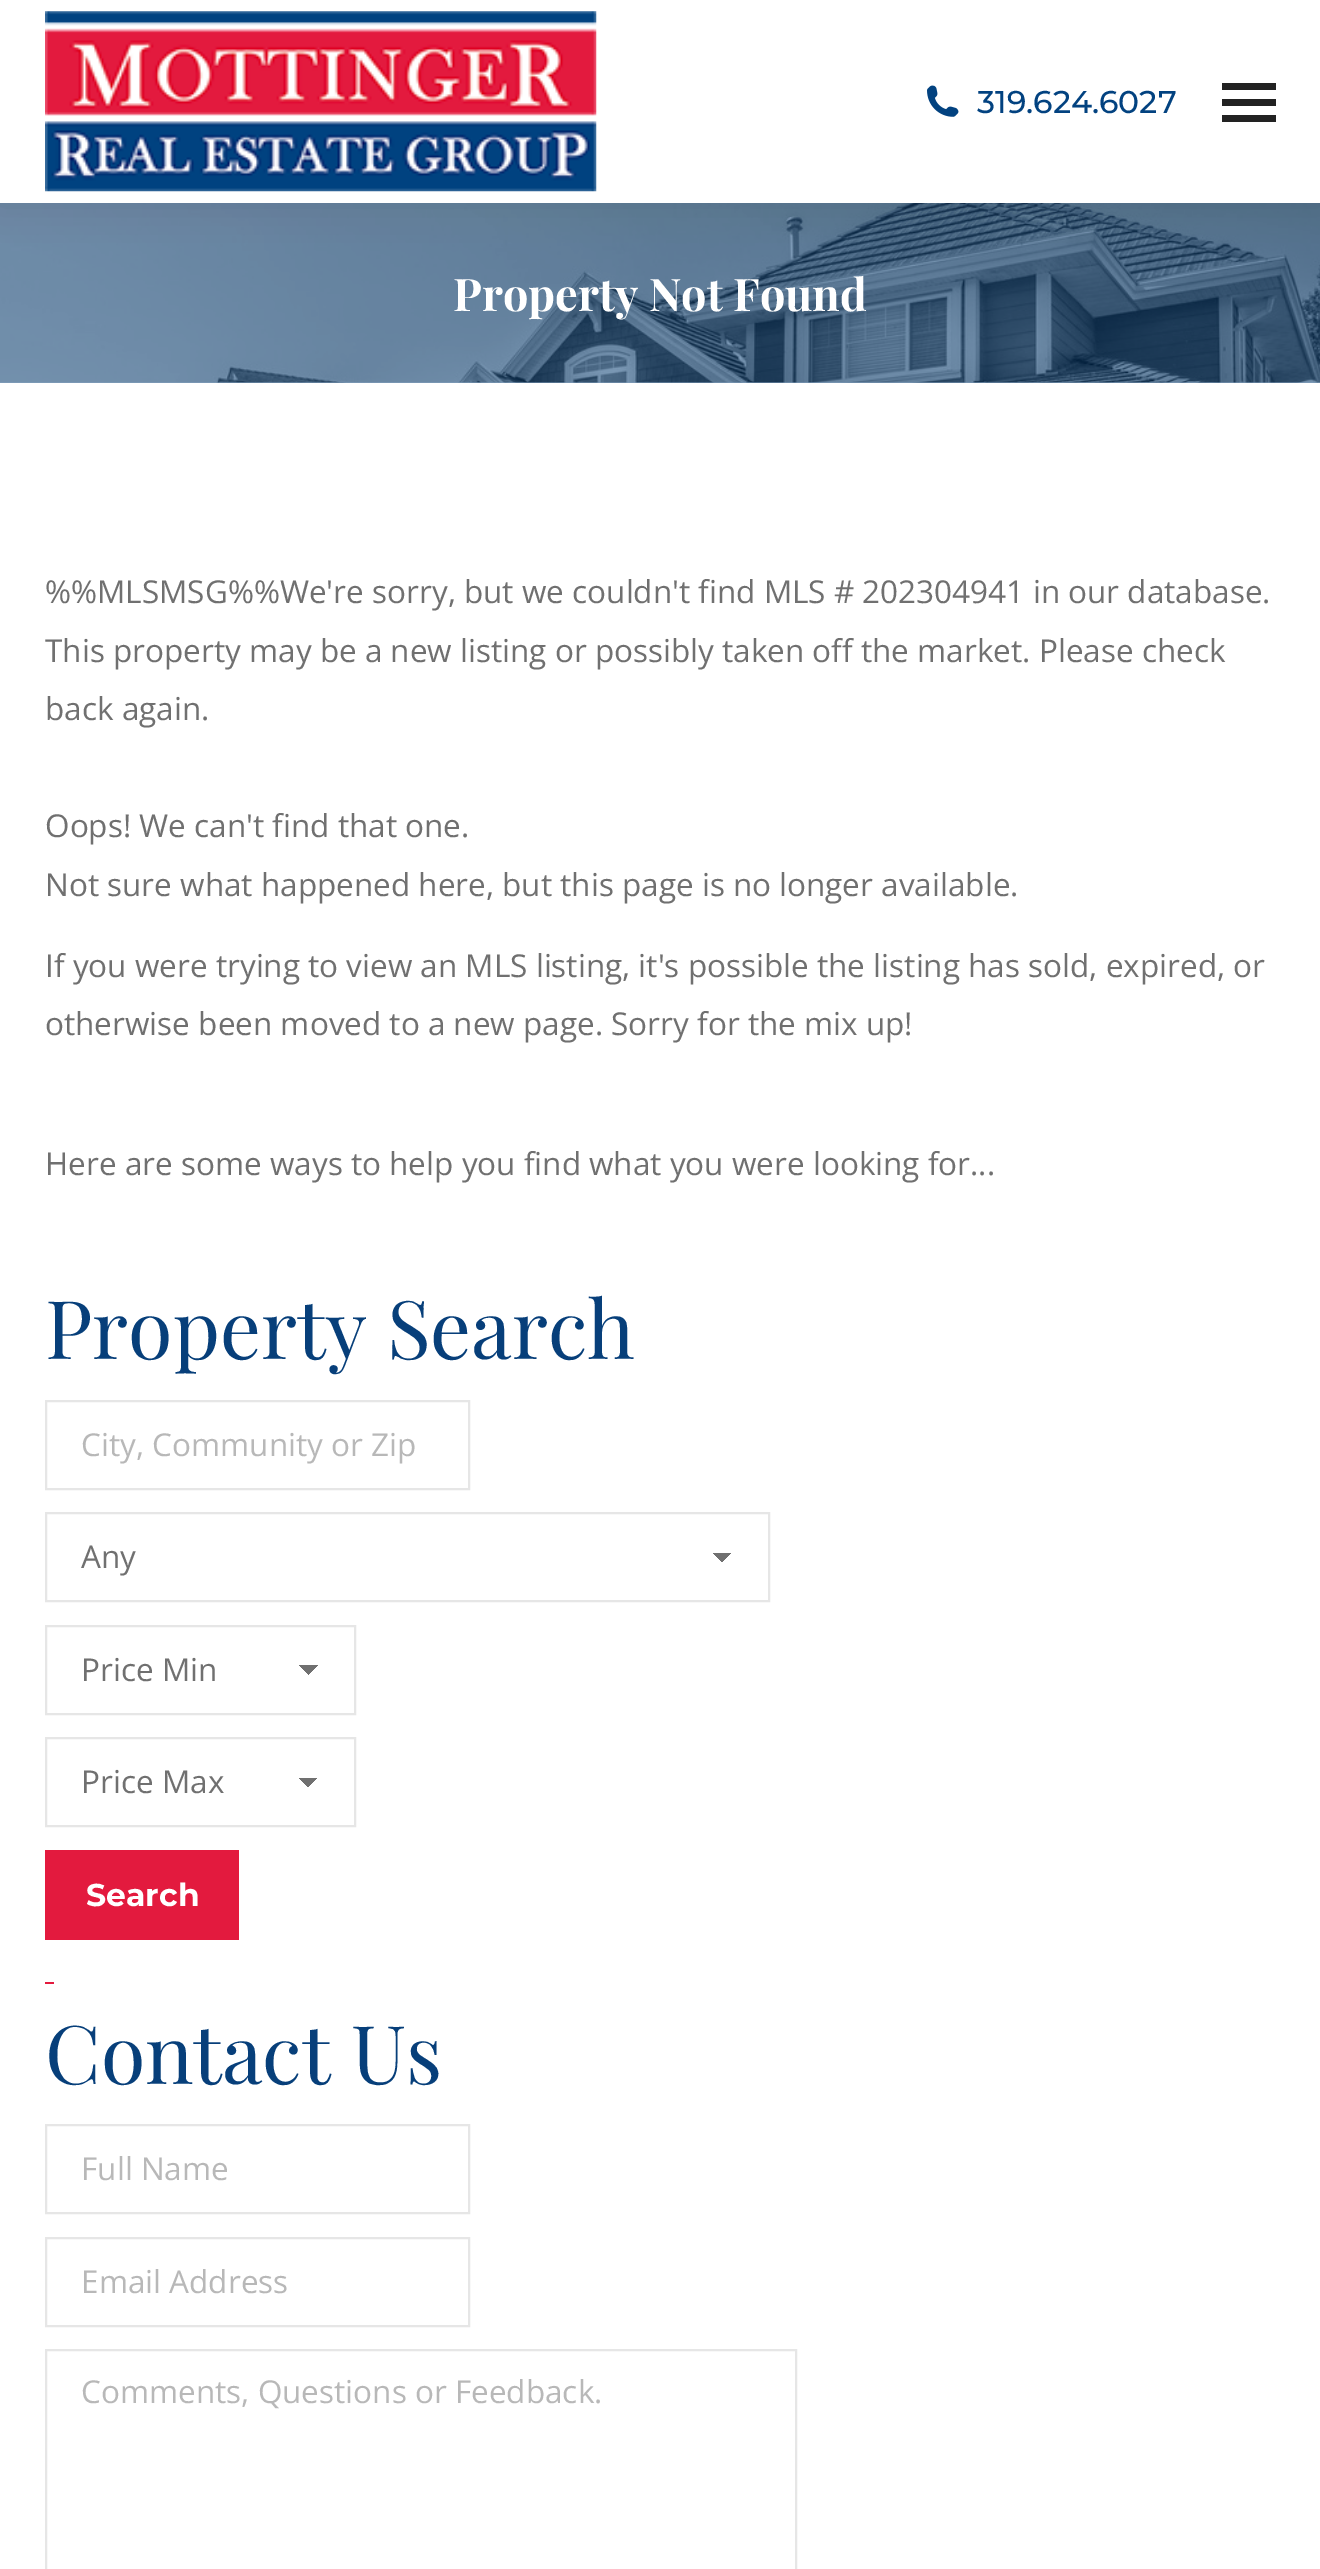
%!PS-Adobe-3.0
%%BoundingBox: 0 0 1320 2569
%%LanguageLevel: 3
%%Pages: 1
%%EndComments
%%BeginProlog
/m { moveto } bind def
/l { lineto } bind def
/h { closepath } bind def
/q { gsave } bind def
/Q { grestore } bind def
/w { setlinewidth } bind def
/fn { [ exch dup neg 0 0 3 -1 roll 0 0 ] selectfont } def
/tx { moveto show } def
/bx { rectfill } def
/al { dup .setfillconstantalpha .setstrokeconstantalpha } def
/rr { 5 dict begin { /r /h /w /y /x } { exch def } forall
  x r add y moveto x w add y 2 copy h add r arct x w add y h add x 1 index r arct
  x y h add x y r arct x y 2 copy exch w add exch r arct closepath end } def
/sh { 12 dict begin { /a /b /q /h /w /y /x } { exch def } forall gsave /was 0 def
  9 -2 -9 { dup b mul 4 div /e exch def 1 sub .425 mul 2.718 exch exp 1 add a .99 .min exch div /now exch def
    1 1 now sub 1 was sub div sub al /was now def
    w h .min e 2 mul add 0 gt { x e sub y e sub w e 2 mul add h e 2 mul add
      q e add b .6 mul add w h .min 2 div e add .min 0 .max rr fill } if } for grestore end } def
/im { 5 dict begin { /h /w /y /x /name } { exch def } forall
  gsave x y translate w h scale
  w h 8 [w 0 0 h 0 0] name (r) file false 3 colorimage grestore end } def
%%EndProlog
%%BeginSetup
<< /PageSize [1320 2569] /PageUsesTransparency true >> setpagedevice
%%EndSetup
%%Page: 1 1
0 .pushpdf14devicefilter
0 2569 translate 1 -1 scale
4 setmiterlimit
1 setgray
0 0 1320 2569 bx
0.522 0.639 0.749 setrgbcolor
0 382 1320 1 bx
(image2.raw) 0 203 1320 180 im
0 setgray
-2 -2 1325 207 0 17 0.07 sh
1 setgray
0 0 1320 203 bx
(image0.raw) 45 11 552 181 im
(image1.raw) 927 85 32 32 im
/Montserrat-Medium 31.5 fn
0.008 0.259 0.502 setrgbcolor
(319.624.6027) 977 113 tx
0.133 setgray
1222 83 54 7 bx
1222 99 54 7 bx
1222 115 54 7 bx
/PlayfairDisplay-Bold 45 fn
1 setgray
(Property Not Found) 453 311 tx
/OpenSans-Regular 31.5 fn
0.439 setgray
(%%MLSMSG%%We're sorry, but we couldn't find MLS # 202304941 in our database.) 45 603 tx
(This property may be a new listing or possibly taken off the market. Please check) 45 662 tx
(back again.) 45 720 tx
(Oops! We can't find that one.) 45 837 tx
(Not sure what happened here, but this page is no longer available.) 45 896 tx
(If you were trying to view an MLS listing, it's possible the listing has sold, expired, or) 45 977 tx
(otherwise been moved to a new page. Sorry for the mix up!) 45 1035 tx
(Here are some ways to help you find what you were looking for...) 45 1175 tx
/PlayfairDisplay-Regular 81 fn
0.027 0.247 0.478 setrgbcolor
(Property Search) 45 1359 tx
0.902 setgray
2 w
46 1401 423 88 rectstroke
/OpenSans-Regular 31.5 fn
0.722 setgray
(City, Community or Zip) 81 1456 tx
q 722 1553 m 731 1553 l 731 1562 l 722 1562 l h clip newpath
<< /ShadingType 2 /ColorSpace /DeviceRGB /Coords [722 1551 734 1563] /Extend [true true] /Function << /FunctionType 3 /Domain [0 1] /Functions [<< /FunctionType 2 /Domain [0 1] /C0 [0.439 0.439 0.439] /C1 [0.439 0.439 0.439] /N 1 >> << /FunctionType 2 /Domain [0 1] /C0 [1 1 1] /C1 [1 1 1] /N 1 >>] /Bounds [0.5] /Encode [0 1 0 1] >> >> shfill Q
q 713 1553 m 722 1553 l 722 1562 l 713 1562 l h clip newpath
<< /ShadingType 2 /ColorSpace /DeviceRGB /Coords [711 1563 722 1551] /Extend [true true] /Function << /FunctionType 3 /Domain [0 1] /Functions [<< /FunctionType 2 /Domain [0 1] /C0 [1 1 1] /C1 [1 1 1] /N 1 >> << /FunctionType 2 /Domain [0 1] /C0 [0.439 0.439 0.439] /C1 [0.439 0.439 0.439] /N 1 >>] /Bounds [0.5] /Encode [0 1 0 1] >> >> shfill Q
0.902 setgray
46 1513 723 88 rectstroke
0.439 setgray
(Any) 81 1568 tx
q 308 1665 m 318 1665 l 318 1675 l 308 1675 l h clip newpath
<< /ShadingType 2 /ColorSpace /DeviceRGB /Coords [308 1664 320 1675] /Extend [true true] /Function << /FunctionType 3 /Domain [0 1] /Functions [<< /FunctionType 2 /Domain [0 1] /C0 [0.439 0.439 0.439] /C1 [0.439 0.439 0.439] /N 1 >> << /FunctionType 2 /Domain [0 1] /C0 [1 1 1] /C1 [1 1 1] /N 1 >>] /Bounds [0.5] /Encode [0 1 0 1] >> >> shfill Q
q 299 1665 m 308 1665 l 308 1674 l 299 1674 l h clip newpath
<< /ShadingType 2 /ColorSpace /DeviceRGB /Coords [297 1675 308 1664] /Extend [true true] /Function << /FunctionType 3 /Domain [0 1] /Functions [<< /FunctionType 2 /Domain [0 1] /C0 [1 1 1] /C1 [1 1 1] /N 1 >> << /FunctionType 2 /Domain [0 1] /C0 [0.439 0.439 0.439] /C1 [0.439 0.439 0.439] /N 1 >>] /Bounds [0.5] /Encode [0 1 0 1] >> >> shfill Q
0.902 setgray
46 1626 309 88 rectstroke
0.439 setgray
(Price Min) 81 1681 tx
q 308 1778 m 317 1778 l 317 1787 l 308 1787 l h clip newpath
<< /ShadingType 2 /ColorSpace /DeviceRGB /Coords [308 1776 320 1788] /Extend [true true] /Function << /FunctionType 3 /Domain [0 1] /Functions [<< /FunctionType 2 /Domain [0 1] /C0 [0.439 0.439 0.439] /C1 [0.439 0.439 0.439] /N 1 >> << /FunctionType 2 /Domain [0 1] /C0 [1 1 1] /C1 [1 1 1] /N 1 >>] /Bounds [0.5] /Encode [0 1 0 1] >> >> shfill Q
q 299 1778 m 308 1778 l 308 1787 l 299 1787 l h clip newpath
<< /ShadingType 2 /ColorSpace /DeviceRGB /Coords [297 1788 308 1776] /Extend [true true] /Function << /FunctionType 3 /Domain [0 1] /Functions [<< /FunctionType 2 /Domain [0 1] /C0 [1 1 1] /C1 [1 1 1] /N 1 >> << /FunctionType 2 /Domain [0 1] /C0 [0.439 0.439 0.439] /C1 [0.439 0.439 0.439] /N 1 >>] /Bounds [0.5] /Encode [0 1 0 1] >> >> shfill Q
0.902 setgray
46 1738 309 88 rectstroke
0.439 setgray
(Price Max) 81 1793 tx
0.89 0.102 0.243 setrgbcolor
45 1850 194 90 bx
/Montserrat-Bold 31.5 fn
1 setgray
(Search) 86 1906 tx
0.89 0.102 0.243 setrgbcolor
45 1982 9 2 bx
/PlayfairDisplay-Regular 81 fn
0.027 0.247 0.478 setrgbcolor
(Contact Us) 45 2084 tx
0.902 setgray
46 2125 423 88 rectstroke
/OpenSans-Regular 31.5 fn
0.722 setgray
(Full Name) 81 2180 tx
0.902 setgray
46 2238 423 88 rectstroke
0.722 setgray
(Email Address) 81 2293 tx
0.902 setgray
46 2350 750 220 rectstroke
0.722 setgray
(Comments, Questions or Feedback.) 81 2403 tx
.poppdf14devicefilter showpage
%%EOF
